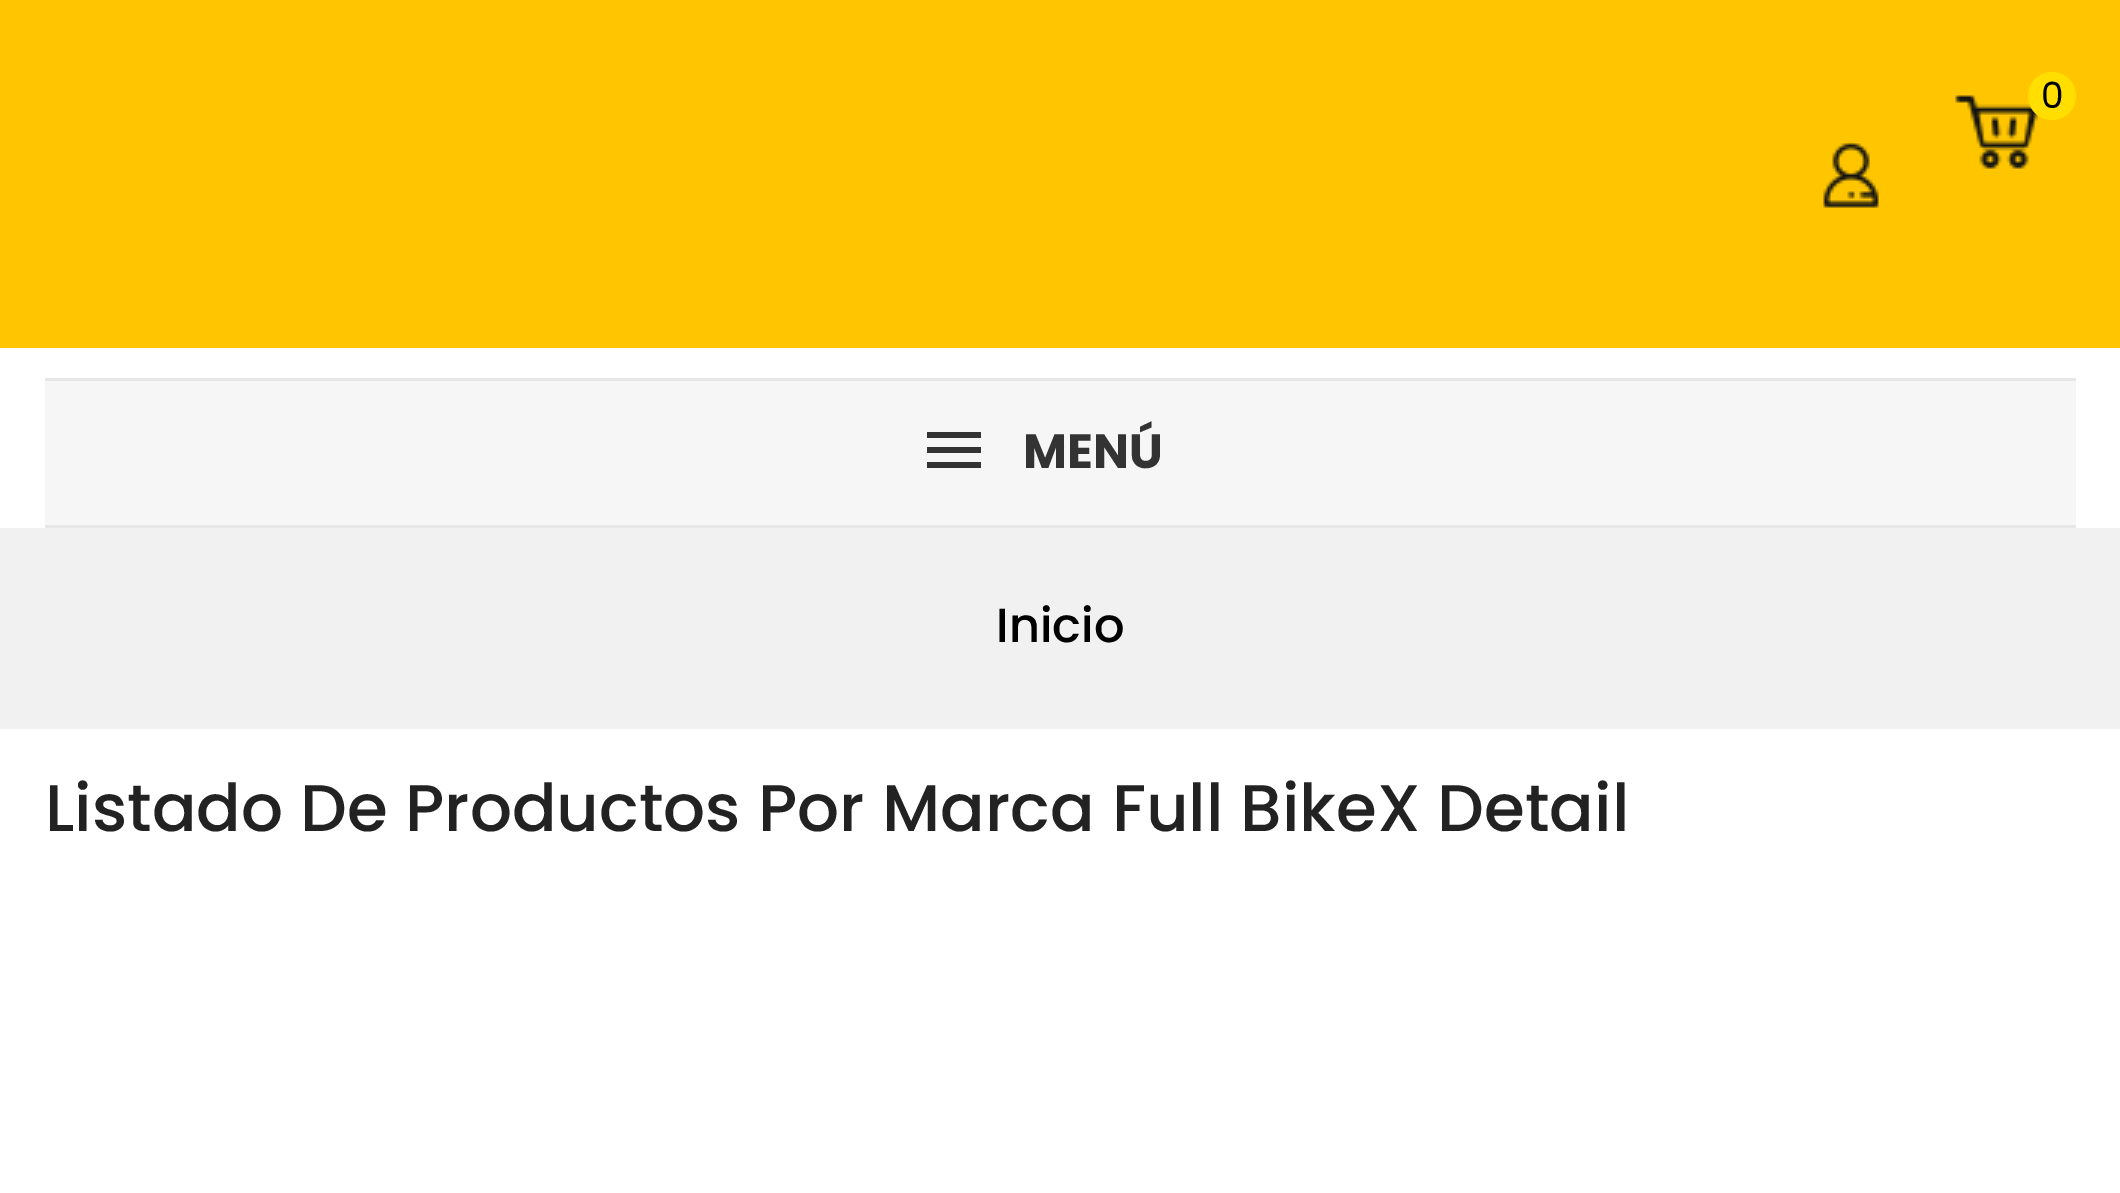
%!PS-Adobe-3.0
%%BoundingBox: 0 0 2120 1193
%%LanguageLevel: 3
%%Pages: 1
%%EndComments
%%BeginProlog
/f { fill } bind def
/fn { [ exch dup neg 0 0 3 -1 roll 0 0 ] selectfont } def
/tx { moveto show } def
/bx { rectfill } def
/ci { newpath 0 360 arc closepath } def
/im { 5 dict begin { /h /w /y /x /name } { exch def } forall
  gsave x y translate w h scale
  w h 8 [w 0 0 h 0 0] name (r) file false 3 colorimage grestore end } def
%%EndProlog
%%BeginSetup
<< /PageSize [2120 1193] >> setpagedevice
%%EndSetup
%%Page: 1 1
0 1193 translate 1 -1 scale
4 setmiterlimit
1 setgray
0 0 2120 1193 bx
1 0.776 0 setrgbcolor
0 0 2120 348 bx
(image0.raw) 1955 95 83 74 im
1 0.871 0 setrgbcolor
2052 96 24 ci f
/Poppins-Regular 36 fn
0 setgray
(0) 2041 108 tx
(image1.raw) 1823 141 56 67 im
0.906 setgray
45 378 2031 3 bx
45 525 2031 3 bx
0.965 setgray
45 381 2031 144 bx
0.2 setgray
927 432 54 6 bx
927 447 54 6 bx
927 462 54 6 bx
/Poppins-Bold 48 fn
(MENÚ) 1023 468 tx
0.945 setgray
0 528 2120 201 bx
/Poppins-Medium 48 fn
0 setgray
(Inicio) 996 642 tx
/Poppins-Medium 66 fn
0.133 setgray
(Listado De Productos Por Marca Full BikeX Detail) 45 831 tx
showpage
%%EOF
